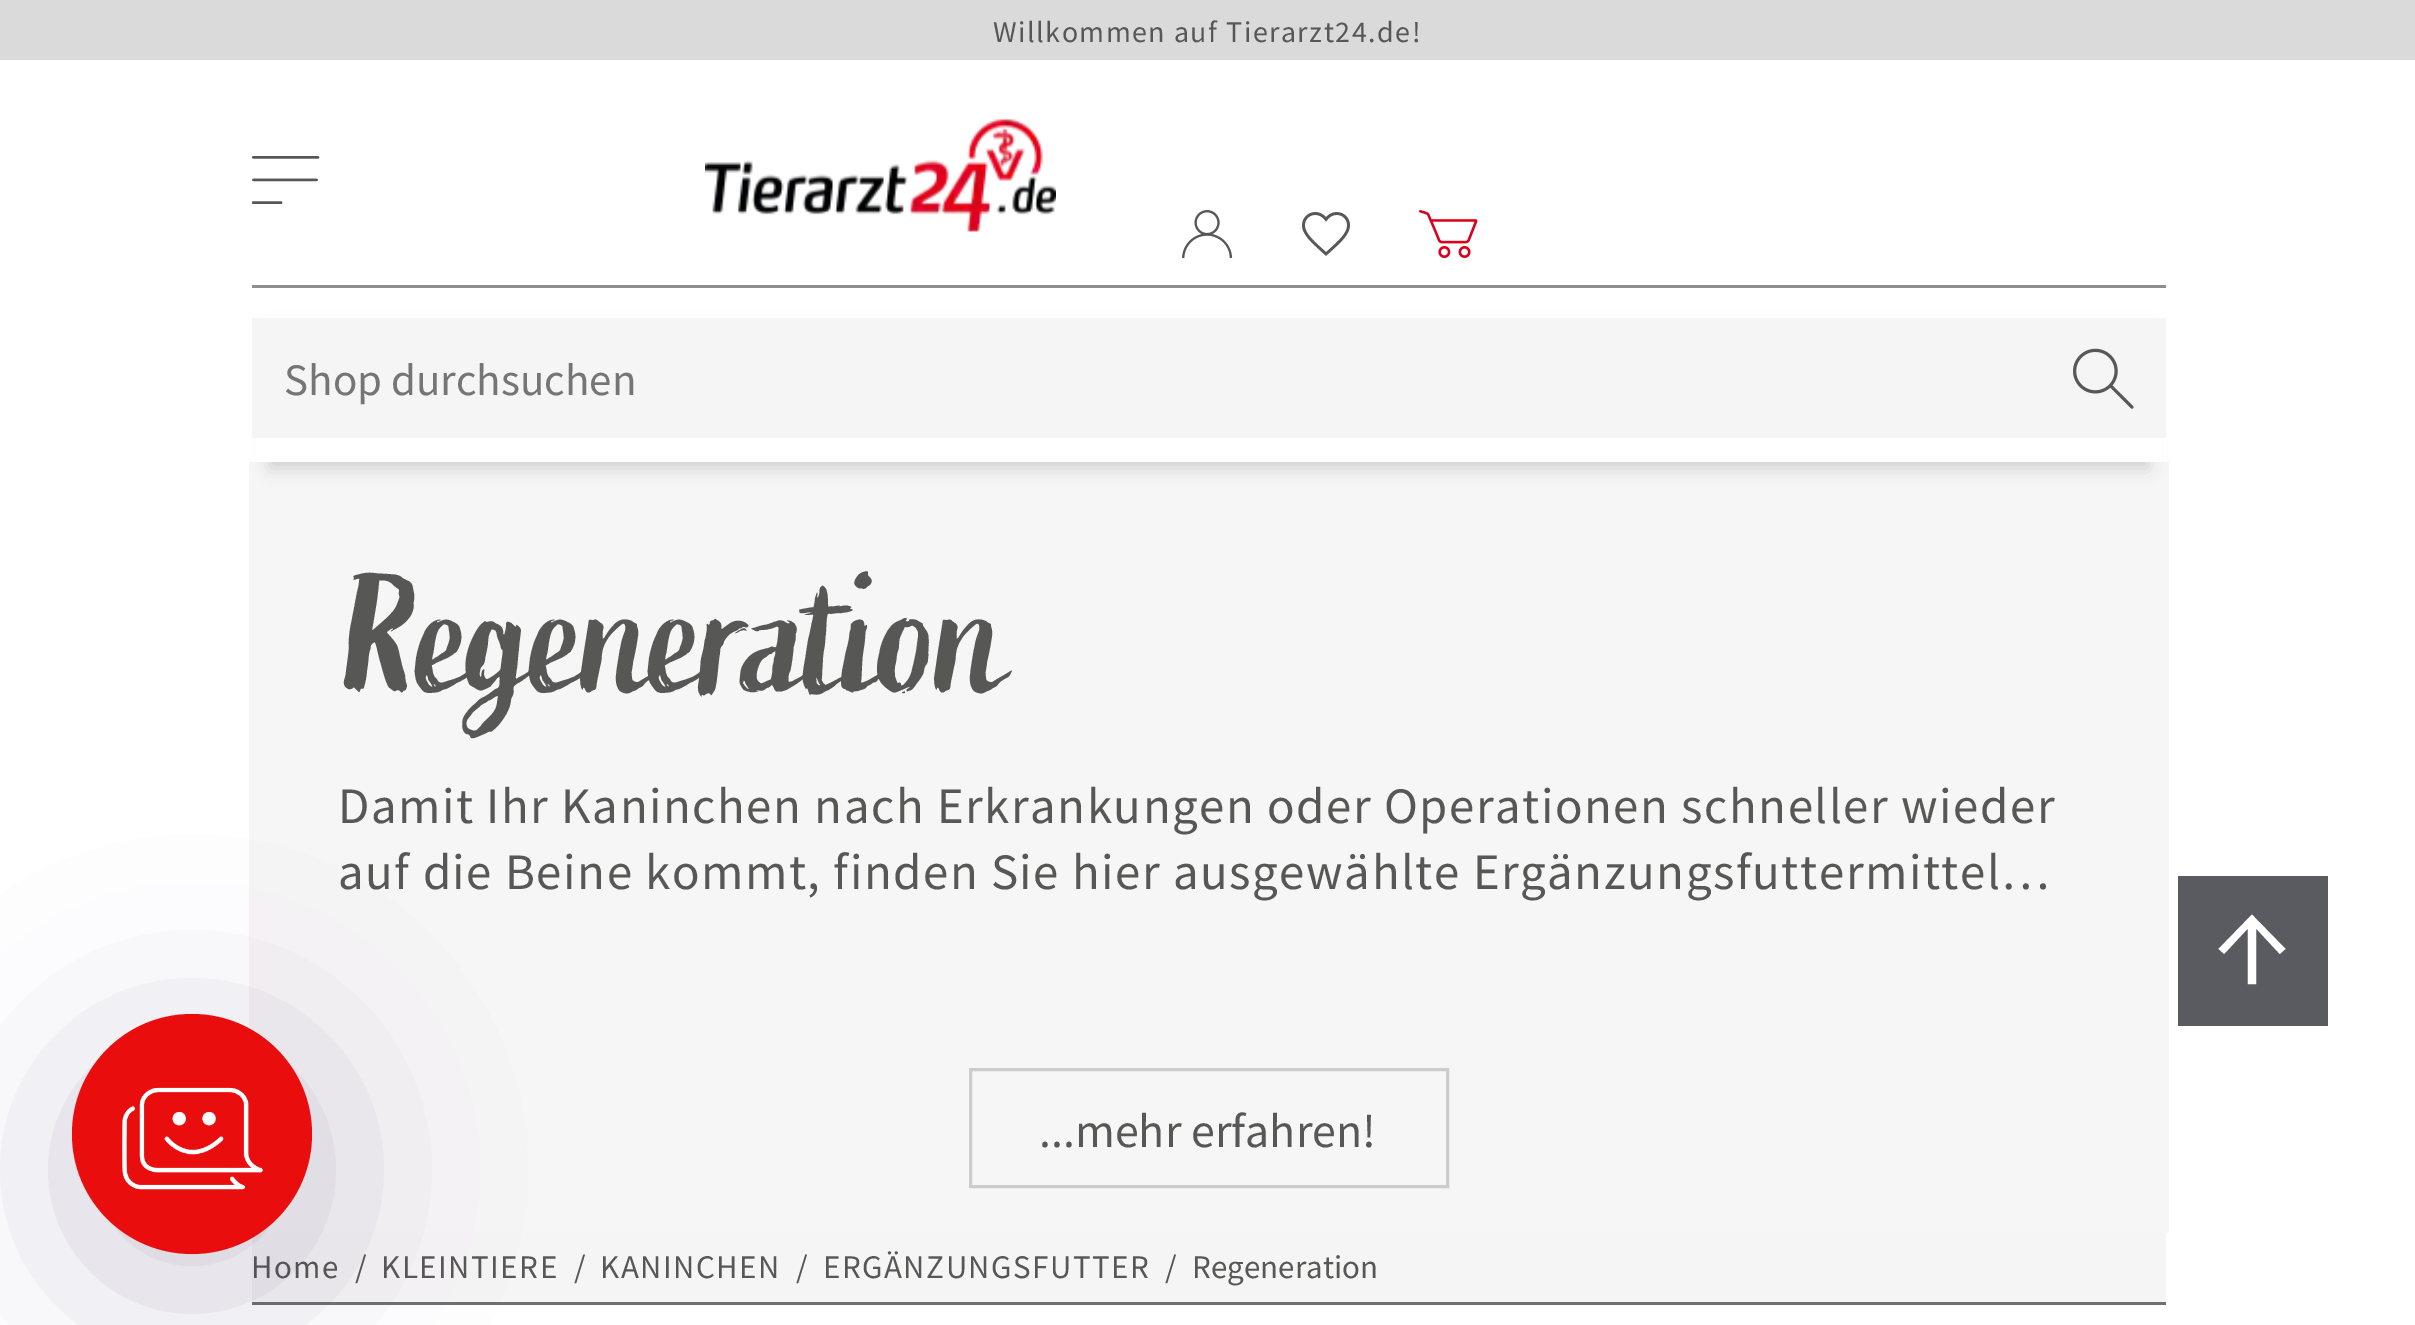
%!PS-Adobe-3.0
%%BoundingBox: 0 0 2415 1325
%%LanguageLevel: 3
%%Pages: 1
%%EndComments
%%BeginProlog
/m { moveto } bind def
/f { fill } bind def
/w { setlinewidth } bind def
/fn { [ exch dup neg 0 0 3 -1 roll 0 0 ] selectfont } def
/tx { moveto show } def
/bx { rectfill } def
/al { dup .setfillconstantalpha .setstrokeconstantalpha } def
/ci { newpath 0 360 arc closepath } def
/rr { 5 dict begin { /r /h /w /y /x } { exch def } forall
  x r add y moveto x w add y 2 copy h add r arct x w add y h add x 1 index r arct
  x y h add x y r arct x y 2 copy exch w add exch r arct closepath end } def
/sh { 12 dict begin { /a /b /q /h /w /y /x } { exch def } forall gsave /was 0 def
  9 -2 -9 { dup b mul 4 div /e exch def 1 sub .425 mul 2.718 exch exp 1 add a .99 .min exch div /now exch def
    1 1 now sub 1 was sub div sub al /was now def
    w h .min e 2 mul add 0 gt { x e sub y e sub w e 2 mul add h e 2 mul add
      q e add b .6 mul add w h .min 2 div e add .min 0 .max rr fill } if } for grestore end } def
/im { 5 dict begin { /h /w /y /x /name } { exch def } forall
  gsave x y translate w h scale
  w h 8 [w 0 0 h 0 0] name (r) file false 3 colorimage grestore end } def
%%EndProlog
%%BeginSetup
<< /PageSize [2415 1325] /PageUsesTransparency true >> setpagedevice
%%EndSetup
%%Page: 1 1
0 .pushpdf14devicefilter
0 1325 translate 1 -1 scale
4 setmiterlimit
1 setgray
0 0 2415 1325 bx
0.855 setgray
0 0 2415 60 bx
/SourceSansPro-Regular 30 fn
0.341 0.341 0.337 setrgbcolor
993 42 m 1.5 0 (Willkommen auf Tierarzt24.de!) ashow
0.557 setgray
252 285 1914 3 bx
(image0.raw) 252 156 68 48 im
(image1.raw) 705 119 351 113 im
(image2.raw) 1182 210 51 48 im
(image3.raw) 1302 212 48 44 im
(image4.raw) 1419 210 59 48 im
0.965 setgray
249 462 1920 771 bx
0 setgray
270 330 1878 138 0 9 0.16 sh
1 setgray
256 316 1906 146 bx
0.961 setgray
252 318 1914 120 bx
/SourceSansPro-Regular 45 fn
0.459 setgray
(Shop durchsuchen) 284 395 tx
(image5.raw) 2073 348 61 61 im
/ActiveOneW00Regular-Regular 168 fn
0.341 0.341 0.337 setrgbcolor
338 690 m -3.4 0 (Regeneration) ashow
/SourceSansPro-Regular 51 fn
338 823 m 1.5 0 (Damit Ihr Kaninchen nach Erkrankungen oder Operationen schneller wieder) ashow
338 889 m 1.5 0 (auf die Beine kommt, finden Sie hier ausgewählte Ergänzungsfuttermittel…) ashow
0.8 setgray
3 w
970.5 1069.5 477 117 rectstroke
/SourceSansPro-Regular 48 fn
0.341 0.341 0.337 setrgbcolor
(...mehr erfahren!) 1039 1147 tx
0.961 setgray
252 1233 1914 69 bx
0.439 setgray
252 1302 1914 3 bx
/SourceSansPro-Regular 33 fn
0.341 0.341 0.337 setrgbcolor
251 1278 m 1.5 0 (Home) ashow
(/) 355 1278 tx
381 1278 m 1.5 0 (KLEINTIERE) ashow
(/) 574 1278 tx
600 1278 m 1.5 0 (KANINCHEN) ashow
(/) 796 1278 tx
823 1278 m 1.5 0 (ERGÄNZUNGSFUTTER) ashow
(/) 1165 1278 tx
(Regeneration) 1192 1278 tx
0.349 0.357 0.376 setrgbcolor
2178 876 150 150 bx
/SourceSansPro-Regular 126 fn
1 setgray
2213 981 m 1.5 0 (↑) ashow
0.243 0.184 0.349 setrgbcolor
72 1050 240 240 120 96 0.24 sh
0.918 0.051 0.051 setrgbcolor
192 1134 120 ci f
(image6.raw) 122 1087 141 103 im
.poppdf14devicefilter showpage
%%EOF
